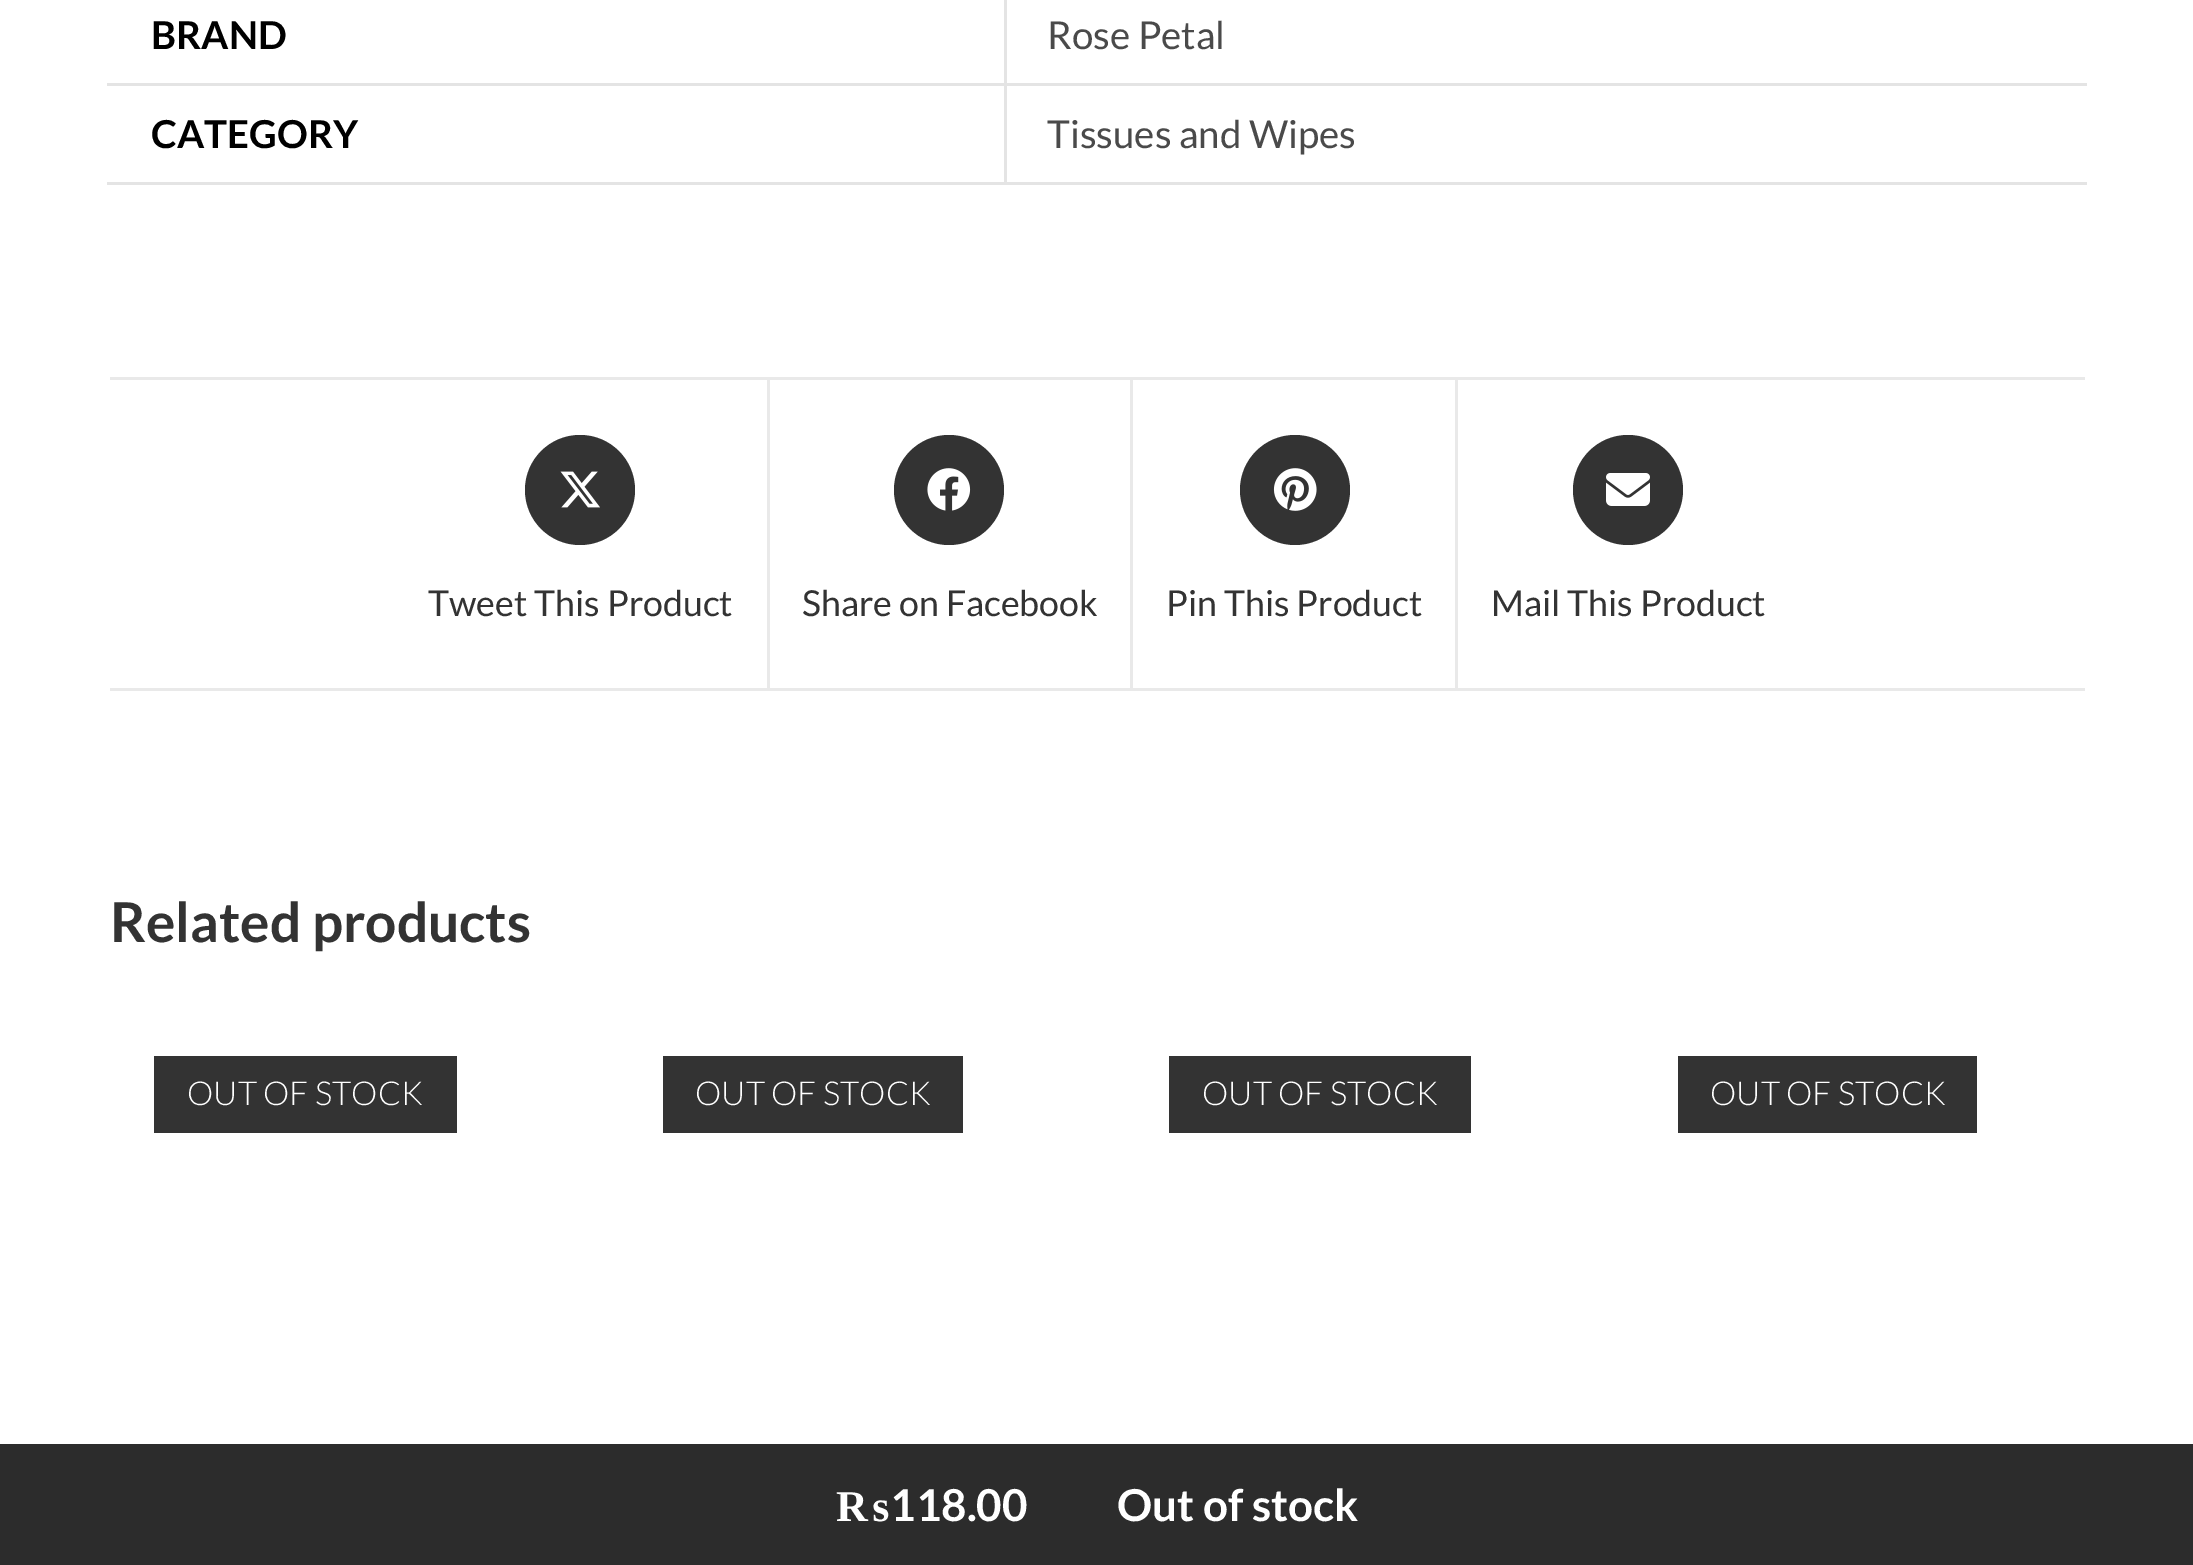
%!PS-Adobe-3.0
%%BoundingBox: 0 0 2193 1565
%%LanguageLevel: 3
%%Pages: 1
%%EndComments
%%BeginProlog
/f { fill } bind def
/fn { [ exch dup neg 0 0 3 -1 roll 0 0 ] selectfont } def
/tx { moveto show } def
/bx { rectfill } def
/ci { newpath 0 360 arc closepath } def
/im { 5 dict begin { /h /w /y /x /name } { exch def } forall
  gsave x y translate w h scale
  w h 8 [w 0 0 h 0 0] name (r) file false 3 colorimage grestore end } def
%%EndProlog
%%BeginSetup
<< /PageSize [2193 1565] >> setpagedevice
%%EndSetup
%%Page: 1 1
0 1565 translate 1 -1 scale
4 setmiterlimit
1 setgray
0 0 2193 1565 bx
0.894 setgray
1004 182 1083 3 bx
1004 83 3 101 bx
1004 83 1083 3 bx
1004 0 3 85 bx
107 83 900 3 bx
/Lato-Bold 38.5 fn
0 setgray
(BRAND) 151 49 tx
/Lato-Regular 38.5 fn
0.29 setgray
(Rose Petal) 1047 49 tx
0.894 setgray
107 182 900 3 bx
/Lato-Bold 38.5 fn
0 setgray
(CATEGORY) 151 148 tx
/Lato-Regular 38.5 fn
0.29 setgray
(Tissues and Wipes) 1047 148 tx
0.914 setgray
110 377 1975 3 bx
110 688 1975 3 bx
767 380 3 308 bx
0.2 setgray
580 490 55 ci f
(image0.raw) 560 471 40 37 im
/Lato-Regular 35.75 fn
(Tweet This Product) 428 616 tx
0.914 setgray
1130 380 3 308 bx
0.2 setgray
949 490 55 ci f
(image1.raw) 927 468 44 43 im
(Share on Facebook) 802 616 tx
0.914 setgray
1455 380 3 308 bx
0.2 setgray
1295 490 55 ci f
(image2.raw) 1273 468 44 43 im
(Pin This Product) 1166 616 tx
1628 490 55 ci f
(image3.raw) 1606 473 44 33 im
(Mail This Product) 1491 616 tx
/Lato-Bold 55 fn
(Related products) 110 942 tx
154 1056 303 77 bx
/Lato-Light 33 fn
1 setgray
(OUT OF STOCK) 187 1105 tx
0.2 setgray
663 1056 300 77 bx
1 setgray
(OUT OF STOCK) 695 1105 tx
0.2 setgray
1169 1056 302 77 bx
1 setgray
(OUT OF STOCK) 1202 1105 tx
0.2 setgray
1678 1056 299 77 bx
1 setgray
(OUT OF STOCK) 1710 1105 tx
0.173 setgray
0 1444 2193 121 bx
/LiberationSerif-Bold 44 fn
1 setgray
(₨) 836 1521 tx
/Lato-Bold 44 fn
(118.00) 890 1521 tx
(Out of stock) 1117 1521 tx
showpage
%%EOF
